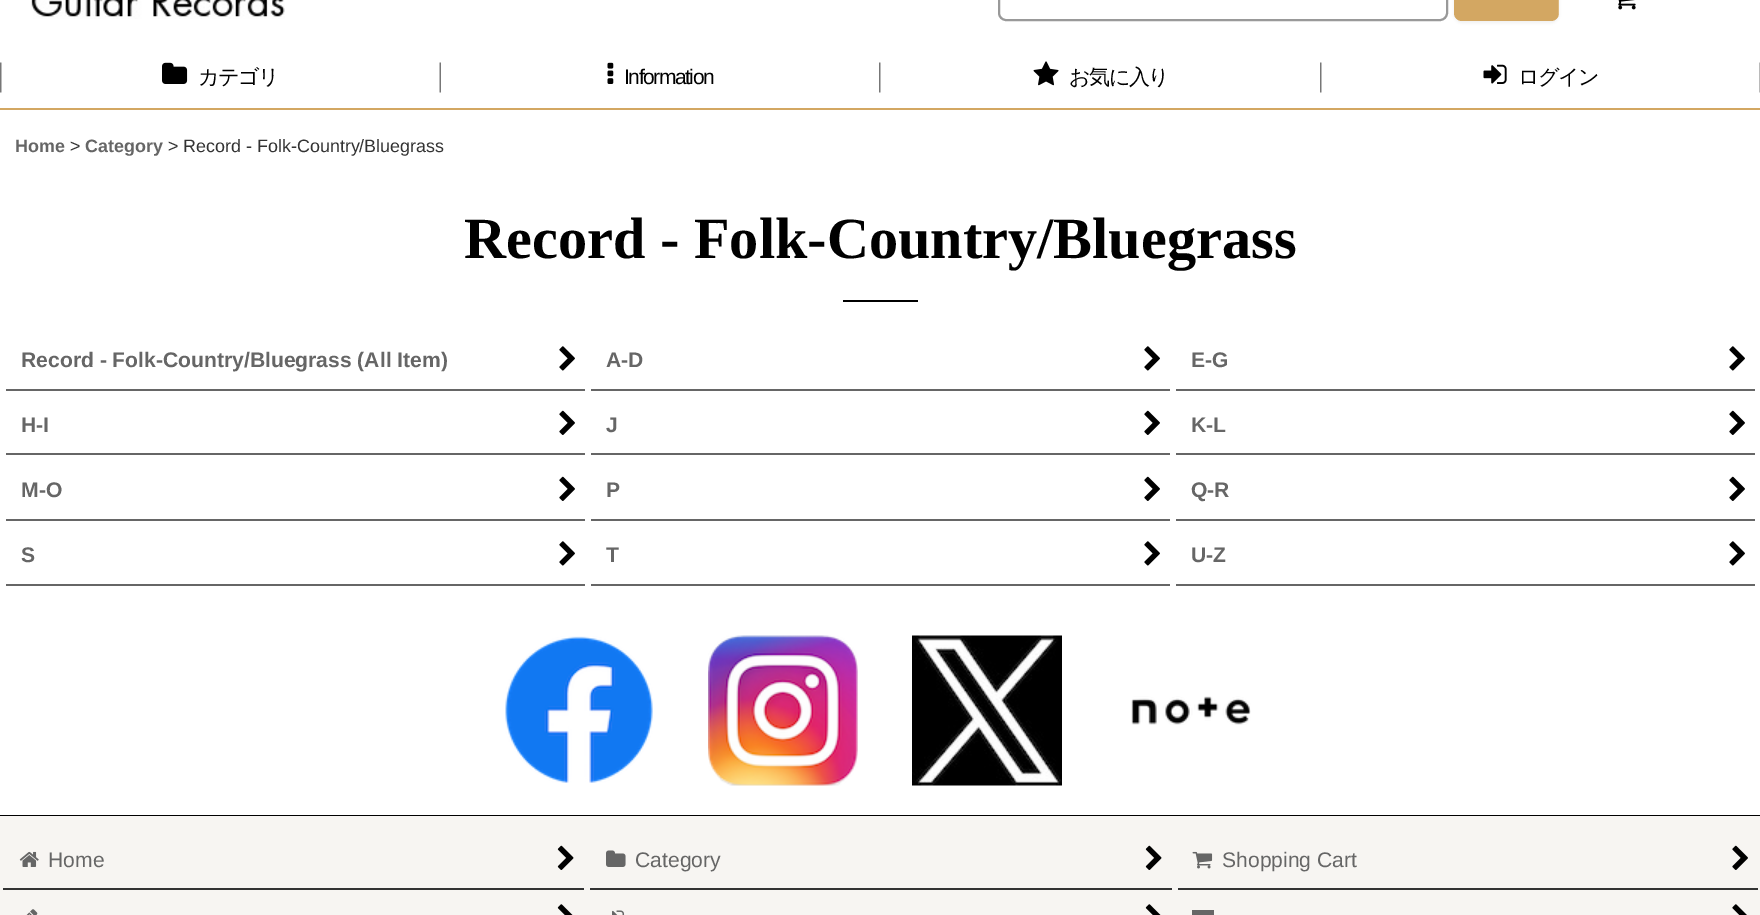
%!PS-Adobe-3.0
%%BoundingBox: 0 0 1760 915
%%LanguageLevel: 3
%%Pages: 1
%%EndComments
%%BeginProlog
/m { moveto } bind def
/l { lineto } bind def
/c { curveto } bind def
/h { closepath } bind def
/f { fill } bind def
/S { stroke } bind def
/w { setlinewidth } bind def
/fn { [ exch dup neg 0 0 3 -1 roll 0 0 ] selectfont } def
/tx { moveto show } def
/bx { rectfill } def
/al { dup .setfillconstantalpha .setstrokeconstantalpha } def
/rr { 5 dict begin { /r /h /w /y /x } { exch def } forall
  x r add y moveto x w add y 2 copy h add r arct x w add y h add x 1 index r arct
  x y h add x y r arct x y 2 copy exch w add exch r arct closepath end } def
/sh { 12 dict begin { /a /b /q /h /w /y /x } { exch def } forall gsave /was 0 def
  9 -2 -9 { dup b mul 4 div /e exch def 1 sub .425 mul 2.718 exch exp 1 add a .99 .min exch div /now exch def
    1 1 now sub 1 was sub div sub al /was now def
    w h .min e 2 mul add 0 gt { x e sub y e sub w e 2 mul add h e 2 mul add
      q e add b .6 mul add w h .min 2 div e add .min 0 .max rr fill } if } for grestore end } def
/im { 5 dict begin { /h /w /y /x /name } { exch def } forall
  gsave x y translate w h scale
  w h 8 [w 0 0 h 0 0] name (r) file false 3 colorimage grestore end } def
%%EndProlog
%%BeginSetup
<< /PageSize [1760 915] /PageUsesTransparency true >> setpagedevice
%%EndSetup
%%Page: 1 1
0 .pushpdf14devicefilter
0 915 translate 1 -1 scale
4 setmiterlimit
1 setgray
0 0 1760 915 bx
0.6 setgray
2 w
999 -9 448 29 7 rr S
0 setgray
1454 -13 105 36 8 1.5 0.05 sh
0.827 0.655 0.384 setrgbcolor
1454 -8 105 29 8 rr f
0.2 al
1 setgray
1461 -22 m 1551 -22 l 1560 -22 1558 -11 1558 -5 c 1558 18 l 1558 16 1559 15 1559 13 c 1559 -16 l 1559 -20 1555 -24 1551 -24 c 1462 -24 l 1458 -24 1454 -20 1454 -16 c 1454 -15 l 1454 -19 1457 -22 1461 -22 c h f
1 al
(image0.raw) 31 0 254 19 im
(image1.raw) 1618 0 18 10 im
0.827 0.655 0.384 setrgbcolor
0 108 1760 2 bx
(image2.raw) 0 62 441 31 im
(image3.raw) 162 62 26 22 im
/WenQuanYiZenHei-Medium 21.1 fn
0 setgray
198 84 m -1.5 0 (カテゴリ) ashow
(image4.raw) 879 62 2 31 im
(image5.raw) 607 62 7 22 im
/LiberationSans-Regular 21.1 fn
624 84 m -1.5 0 (Information) ashow
(image4.raw) 1320 62 2 31 im
(image6.raw) 1033 61 26 25 im
/WenQuanYiZenHei-Medium 21.1 fn
1069 84 m -1.5 0 (お気に入り) ashow
(image7.raw) 1759 62 1 31 im
(image8.raw) 1483 64 24 20 im
1518 84 m -1.5 0 (ログイン) ashow
/LiberationSans-Bold 17.9 fn
0.4 setgray
(Home) 15 152 tx
/LiberationSans-Regular 17.9 fn
0.2 setgray
(>) 70 152 tx
/LiberationSans-Bold 17.9 fn
0.4 setgray
(Category) 85 152 tx
/LiberationSans-Regular 17.9 fn
0.2 setgray
(> Record - Folk-Country/Bluegrass) 168 152 tx
/LiberationSerif-Bold 58.3 fn
0 setgray
(Record - Folk-Country/Bluegrass) 464 258 tx
843 300 75 2 bx
0.4 setgray
6 389 579 2 bx
/LiberationSans-Bold 21.1 fn
(Record - Folk-Country/Bluegrass \(All Item\)) 21 367 tx
(image9.raw) 559 346 16 25 im
591 389 579 2 bx
(A-D) 606 367 tx
(image9.raw) 1144 346 16 25 im
1176 389 579 2 bx
(E-G) 1191 367 tx
(image9.raw) 1729 346 16 25 im
6 453 579 2 bx
(H-I) 21 432 tx
(image10.raw) 559 410 16 25 im
591 453 579 2 bx
(J) 606 432 tx
(image10.raw) 1144 410 16 25 im
1176 453 579 2 bx
(K-L) 1191 432 tx
(image10.raw) 1729 410 16 25 im
6 519 579 2 bx
(M-O) 21 497 tx
(image10.raw) 559 476 16 25 im
591 519 579 2 bx
(P) 606 497 tx
(image10.raw) 1144 476 16 25 im
1176 519 579 2 bx
(Q-R) 1191 497 tx
(image10.raw) 1729 476 16 25 im
6 584 579 2 bx
(S) 21 562 tx
(image9.raw) 559 541 16 25 im
591 584 579 2 bx
(T) 606 562 tx
(image9.raw) 1144 541 16 25 im
1176 584 579 2 bx
(U-Z) 1191 562 tx
(image9.raw) 1729 541 16 25 im
(image11.raw) 505 636 148 147 im
(image12.raw) 708 635 150 151 im
(image13.raw) 912 635 150 151 im
(image14.raw) 1131 696 120 29 im
0 setgray
0 815 1760 1 bx
0.969 0.961 0.949 setrgbcolor
0 816 1760 99 bx
0.2 setgray
3 888 581 2 bx
(image15.raw) 19 851 20 16 im
/LiberationSans-Regular 21.1 fn
0.4 setgray
(Home) 48 867 tx
(image16.raw) 557 845 17 25 im
0.2 setgray
590 888 582 2 bx
(image17.raw) 606 850 20 17 im
0.4 setgray
(Category) 635 867 tx
(image16.raw) 1145 845 17 25 im
0.2 setgray
1178 888 580 2 bx
(image18.raw) 1192 851 21 18 im
0.4 setgray
(Shopping Cart) 1222 867 tx
(image19.raw) 1732 845 16 25 im
(image20.raw) 26 909 12 6 im
(image21.raw) 557 904 16 11 im
(image22.raw) 612 910 13 5 im
(image21.raw) 1145 904 16 11 im
1192 910 22 5 bx
(image23.raw) 1732 904 15 11 im
.poppdf14devicefilter showpage
%%EOF
